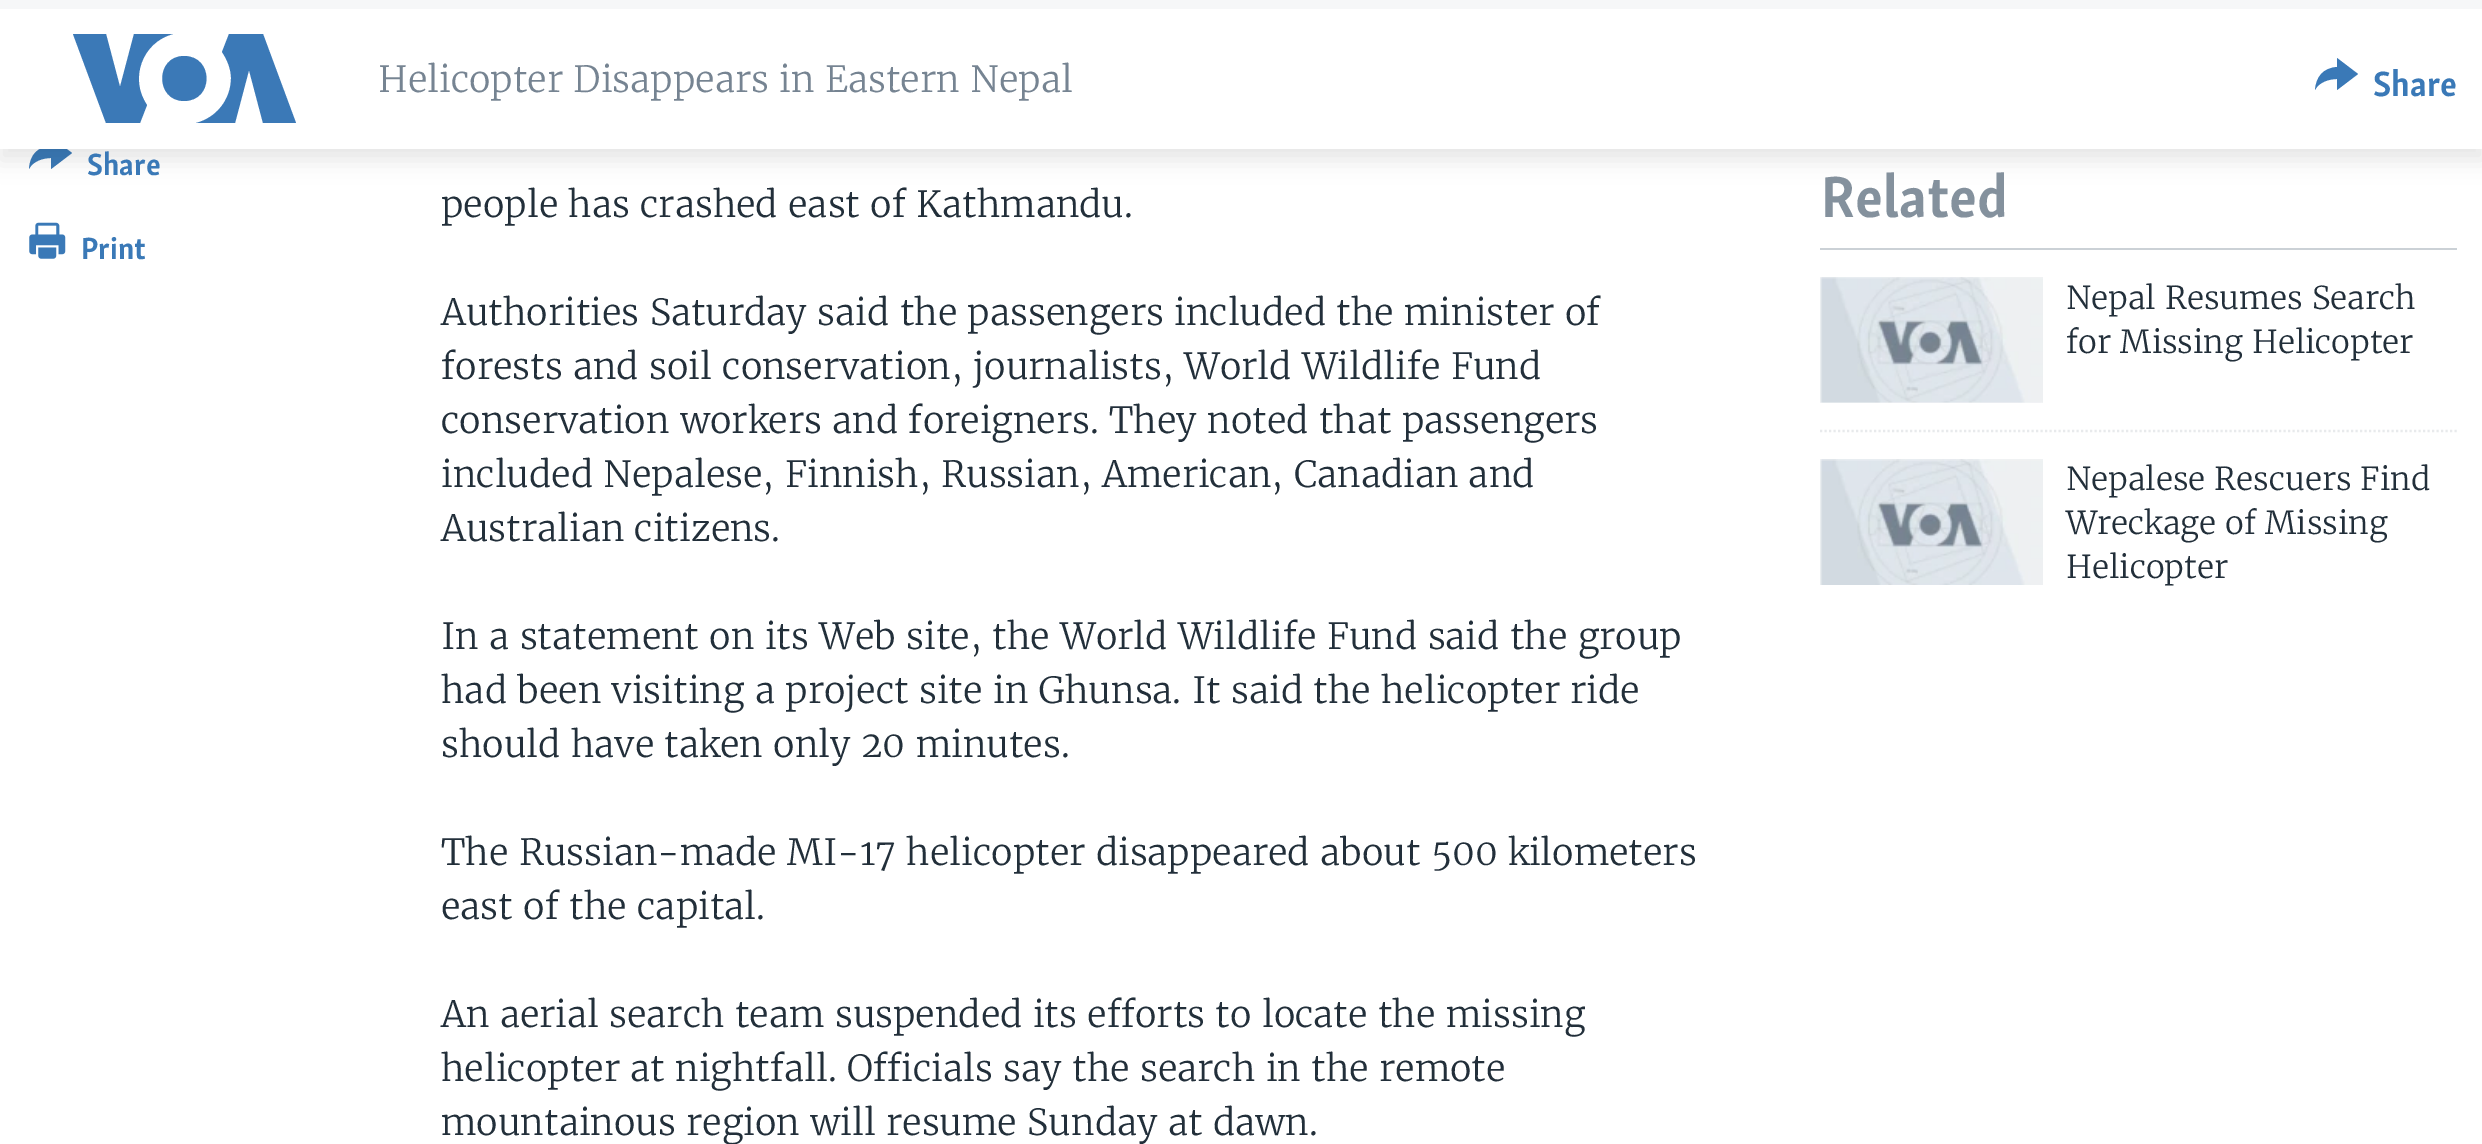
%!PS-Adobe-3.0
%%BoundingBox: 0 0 2482 1144
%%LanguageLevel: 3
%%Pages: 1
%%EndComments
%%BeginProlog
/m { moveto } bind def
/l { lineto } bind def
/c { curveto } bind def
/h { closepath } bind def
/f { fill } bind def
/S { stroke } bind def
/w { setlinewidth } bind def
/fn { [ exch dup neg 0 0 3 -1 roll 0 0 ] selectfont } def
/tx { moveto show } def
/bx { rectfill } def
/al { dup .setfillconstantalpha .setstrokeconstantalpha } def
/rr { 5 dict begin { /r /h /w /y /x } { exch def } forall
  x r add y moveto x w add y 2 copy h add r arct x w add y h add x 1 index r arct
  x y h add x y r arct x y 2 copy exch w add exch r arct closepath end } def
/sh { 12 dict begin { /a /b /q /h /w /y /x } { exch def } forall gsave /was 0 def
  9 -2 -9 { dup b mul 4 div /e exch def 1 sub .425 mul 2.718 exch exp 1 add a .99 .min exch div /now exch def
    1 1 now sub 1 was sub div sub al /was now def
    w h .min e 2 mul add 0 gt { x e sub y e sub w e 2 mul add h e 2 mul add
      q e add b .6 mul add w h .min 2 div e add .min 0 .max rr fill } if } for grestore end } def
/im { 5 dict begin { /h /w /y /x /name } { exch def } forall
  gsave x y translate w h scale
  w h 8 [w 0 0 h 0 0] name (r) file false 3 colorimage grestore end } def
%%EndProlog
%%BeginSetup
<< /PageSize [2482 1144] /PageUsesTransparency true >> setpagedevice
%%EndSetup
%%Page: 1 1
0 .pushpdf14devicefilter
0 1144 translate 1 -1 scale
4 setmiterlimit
1 setgray
0 0 2482 1144 bx
0.227 0.475 0.718 setrgbcolor
29 169 m 30 155 37 147 51 146 c 51 137 l 72 153 l 51 169 l 51 158 l 43 158 33 161 29 169 c h f
0 setgray
0 11 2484 149 0 11 0.1 sh
1 setgray
0 9 2482 140 bx
0.965 0.969 0.973 setrgbcolor
0 0 2482 9 bx
0.231 0.475 0.718 setrgbcolor
147 105 m 140 123 l 106 123 l 73 34 l 106 34 l 120 87 l 134 34 l 173 34 l 142 42 129 79 147 105 c h 184 56 m 155 56 155 101 184 101 c 214 101 214 56 184 56 c h 231 78 m 231 100 216 118 196 123 c 235 123 l 249 70 l 263 123 l 296 123 l 263 34 l 229 34 l 222 52 l 227 59 231 69 231 78 c h f
/Merriweather-Light 36 fn
0.463 0.518 0.573 setrgbcolor
(Helicopter Disappears in Eastern Nepal) 378 92 tx
0.227 0.475 0.718 setrgbcolor
2315 90 m 2316 77 2323 68 2337 67 c 2337 58 l 2358 74 l 2337 90 l 2337 79 l 2329 79 2319 82 2315 90 c h f
/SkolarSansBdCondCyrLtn-Bold 36 fn
(Share) 2373 96 tx
/SkolarSansBdCondCyrLtn-Bold 31.5 fn
(Share) 87 175 tx
(image0.raw) 29 222 37 37 im
(Print) 81 259 tx
/Merriweather-Light 36 fn
0.133 0.184 0.227 setrgbcolor
(people has crashed east of Kathmandu.) 441 217 tx
(Authorities Saturday said the passengers included the minister of) 441 325 tx
(forests and soil conservation, journalists, World Wildlife Fund) 441 379 tx
(conservation workers and foreigners. They noted that passengers) 441 433 tx
(included Nepalese, Finnish, Russian, American, Canadian and) 441 487 tx
(Australian citizens.) 441 541 tx
(In a statement on its Web site, the World Wildlife Fund said the group) 441 649 tx
(had been visiting a project site in Ghunsa. It said the helicopter ride) 441 703 tx
(should have taken only 20 minutes.) 441 757 tx
(The Russian-made MI-17 helicopter disappeared about 500 kilometers) 441 865 tx
(east of the capital.) 441 919 tx
(An aerial search team suspended its efforts to locate the missing) 441 1027 tx
(helicopter at nightfall. Officials say the search in the remote) 441 1081 tx
(mountainous region will resume Sunday at dawn.) 441 1135 tx
0.796 0.82 0.839 setrgbcolor
1820 248 637 2 bx
/SkolarSansBdCondCyrLtn-Bold 59.5 fn
0.518 0.569 0.616 setrgbcolor
(Related) 1821 217 tx
0.965 0.969 0.973 setrgbcolor
1820 277 223 126 bx
(image1.raw) 1820 277 223 126 im
/Merriweather-Light 31.5 fn
0.133 0.184 0.227 setrgbcolor
(Nepal Resumes Search) 2066 309 tx
(for Missing Helicopter) 2066 353 tx
0.91 0.918 0.925 setrgbcolor
2.2 w
[2.25 2.25] 0 setdash
1820 431 m 2457 431 l S
0.965 0.969 0.973 setrgbcolor
1820 459 223 126 bx
(image2.raw) 1820 459 223 126 im
0.133 0.184 0.227 setrgbcolor
(Nepalese Rescuers Find) 2066 490 tx
(Wreckage of Missing) 2066 534 tx
(Helicopter) 2066 578 tx
.poppdf14devicefilter showpage
%%EOF
